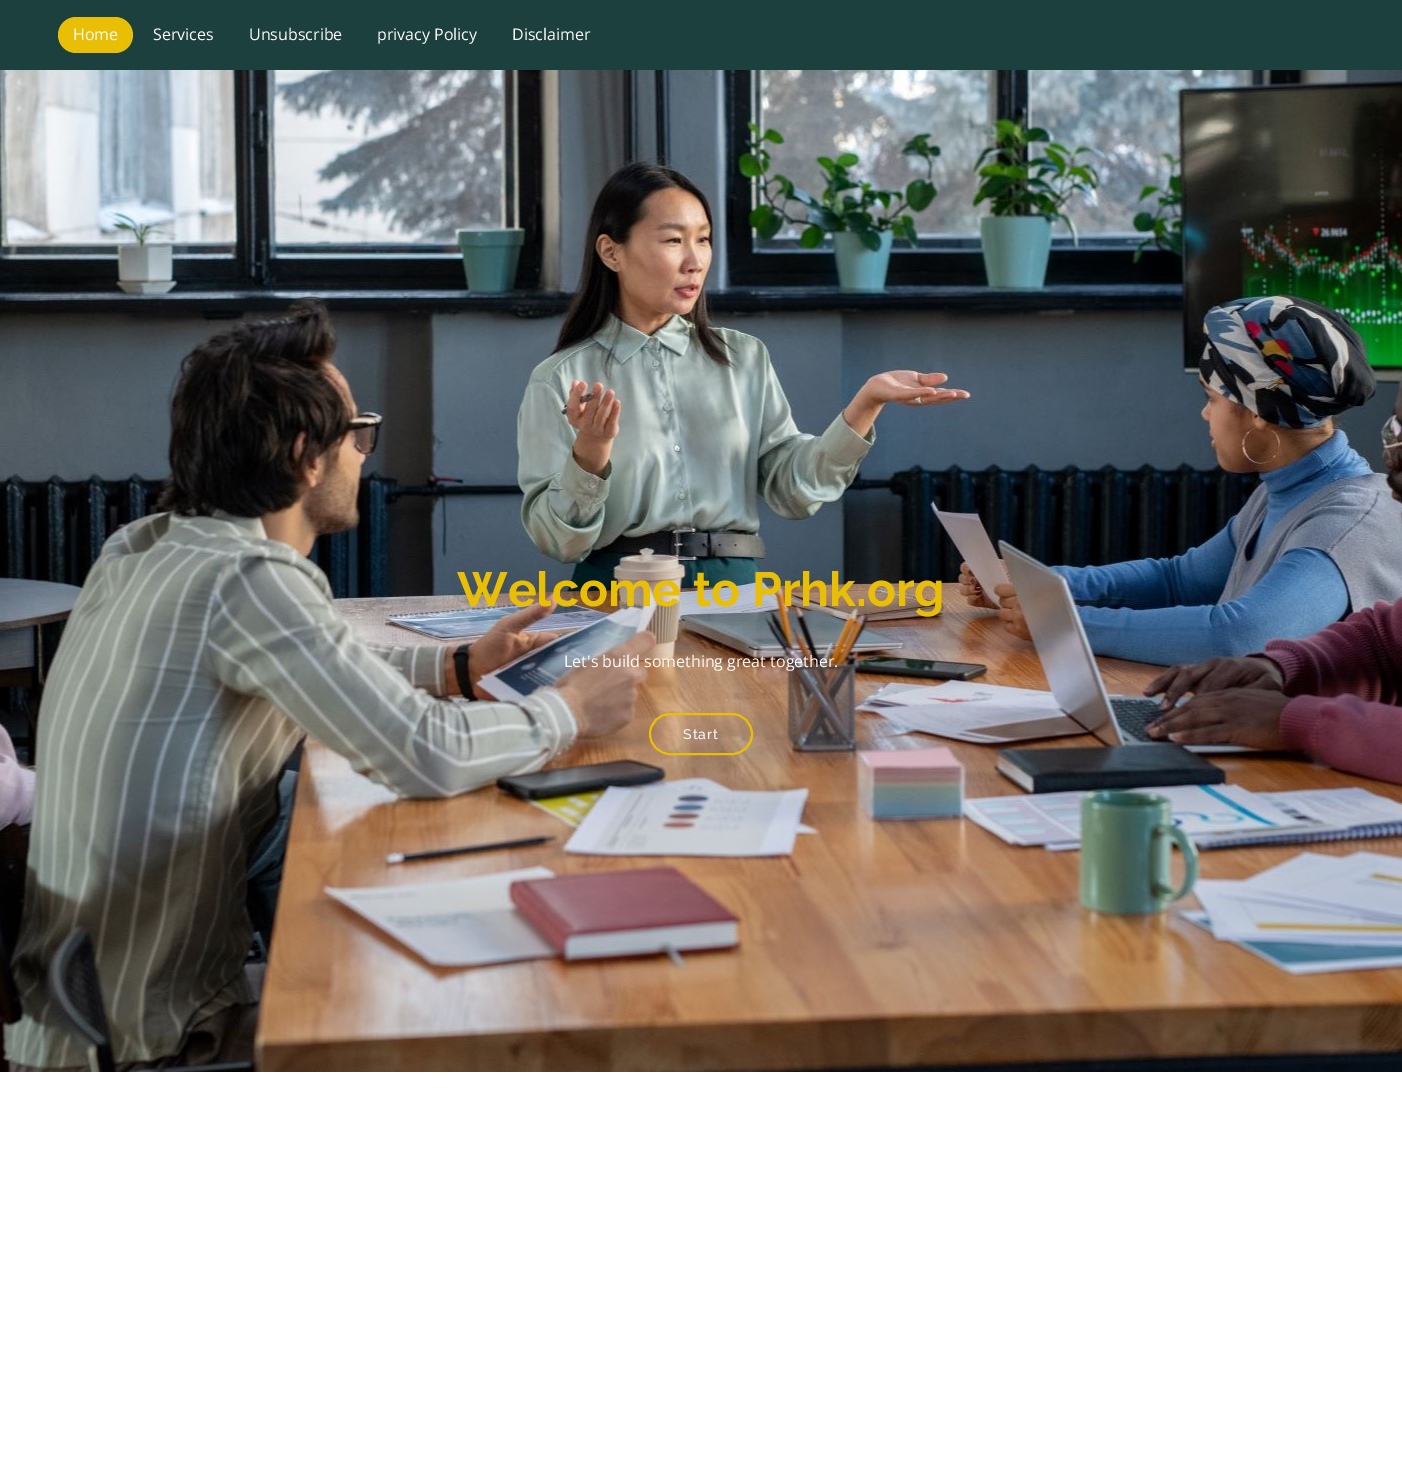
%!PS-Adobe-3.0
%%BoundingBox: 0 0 1402 1473
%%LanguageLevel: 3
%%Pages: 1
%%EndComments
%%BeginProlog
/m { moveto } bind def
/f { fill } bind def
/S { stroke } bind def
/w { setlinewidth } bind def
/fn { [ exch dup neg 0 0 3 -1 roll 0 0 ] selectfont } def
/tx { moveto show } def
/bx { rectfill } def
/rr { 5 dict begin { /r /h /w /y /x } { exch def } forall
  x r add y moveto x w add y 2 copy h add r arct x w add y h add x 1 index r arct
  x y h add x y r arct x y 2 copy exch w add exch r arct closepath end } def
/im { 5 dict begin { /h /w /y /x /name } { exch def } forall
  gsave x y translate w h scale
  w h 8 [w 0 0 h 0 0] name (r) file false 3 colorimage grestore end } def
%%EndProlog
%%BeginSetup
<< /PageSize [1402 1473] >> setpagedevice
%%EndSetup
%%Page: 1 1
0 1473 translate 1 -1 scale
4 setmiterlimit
1 setgray
0 0 1402 1473 bx
0.11 0.251 0.243 setrgbcolor
0 0 1402 70 bx
0.914 0.749 0.024 setrgbcolor
58 17 75 36 18 rr f
/OpenSans-Regular 16 fn
1 0.98 0.98 setrgbcolor
(Home) 73 40 tx
(Services) 153 40 tx
(Unsubscribe) 249 40 tx
(privacy Policy) 377 40 tx
(Disclaimer) 512 40 tx
(image0.raw) 0 70 1402 1002 im
/Raleway-Bold 48 fn
0.914 0.749 0.024 setrgbcolor
(Welcome to Prhk.org) 457 606 tx
/OpenSans-Regular 16 fn
1 0.98 0.98 setrgbcolor
(Let's build something great together.) 564 667 tx
0.914 0.749 0.024 setrgbcolor
2 w
650 714 102 40 20 rr S
/Raleway-Medium 14 fn
1 0.98 0.98 setrgbcolor
683 739 m 1 0 (Start) ashow
showpage
%%EOF
